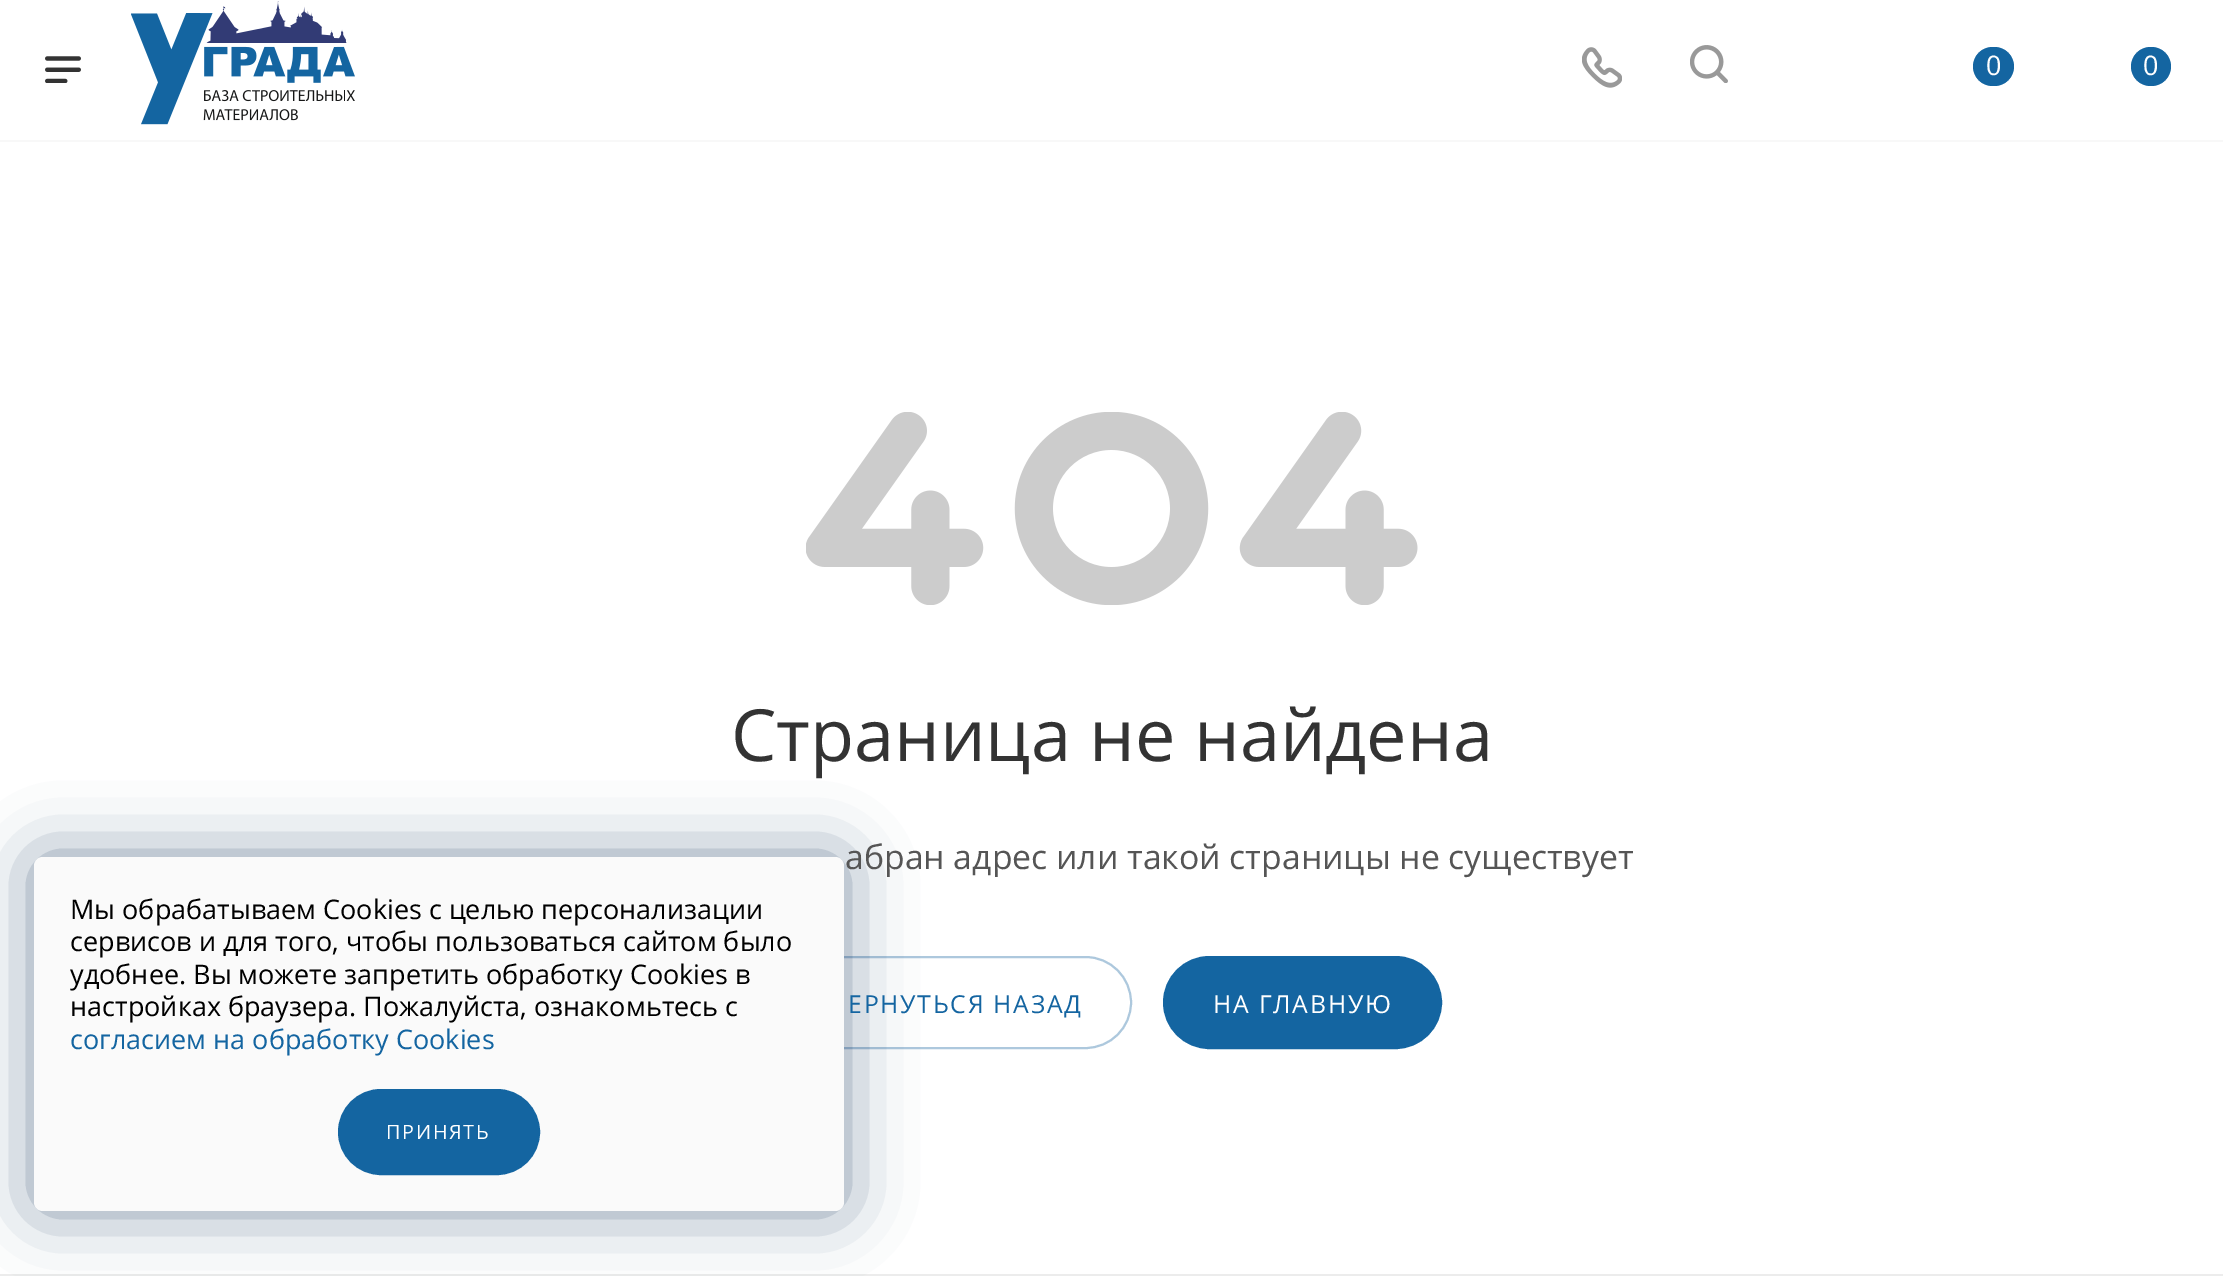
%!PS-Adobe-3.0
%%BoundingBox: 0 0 2223 1276
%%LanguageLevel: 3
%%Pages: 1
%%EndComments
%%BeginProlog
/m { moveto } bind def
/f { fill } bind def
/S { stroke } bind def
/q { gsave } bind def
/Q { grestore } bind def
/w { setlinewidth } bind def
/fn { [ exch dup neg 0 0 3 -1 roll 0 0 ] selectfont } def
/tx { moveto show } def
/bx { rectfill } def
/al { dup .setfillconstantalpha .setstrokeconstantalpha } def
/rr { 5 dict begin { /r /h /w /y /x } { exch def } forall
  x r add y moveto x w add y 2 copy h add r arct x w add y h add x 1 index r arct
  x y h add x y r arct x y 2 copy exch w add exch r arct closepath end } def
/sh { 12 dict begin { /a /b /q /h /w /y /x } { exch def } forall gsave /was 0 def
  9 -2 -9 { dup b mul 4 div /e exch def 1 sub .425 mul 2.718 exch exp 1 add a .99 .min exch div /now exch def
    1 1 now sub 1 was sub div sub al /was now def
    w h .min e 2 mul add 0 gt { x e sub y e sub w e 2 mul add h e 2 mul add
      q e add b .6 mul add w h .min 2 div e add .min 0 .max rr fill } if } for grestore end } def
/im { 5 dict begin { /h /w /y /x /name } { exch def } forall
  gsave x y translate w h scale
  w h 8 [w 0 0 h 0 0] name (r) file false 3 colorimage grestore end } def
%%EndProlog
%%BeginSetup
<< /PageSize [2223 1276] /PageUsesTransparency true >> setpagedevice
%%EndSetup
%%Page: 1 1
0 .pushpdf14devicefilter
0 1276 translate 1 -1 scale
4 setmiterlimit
1 setgray
0 0 2223 1276 bx
0.678 0.784 0.867 setrgbcolor
2 w
782 957 349 91 45.5 rr S
0.925 setgray
0 1274 2223 2 bx
0.004 0.125 0.298 setrgbcolor
34 857 810 354 9 34 0.5 sh
0.98 setgray
34 857 810 354 9 rr f
/OpenSans-Regular 27 fn
0 setgray
(Мы обрабатываем Cookies с целью персонализации) 70 919 tx
(сервисов и для того, чтобы пользоваться сайтом было) 70 951 tx
(удобнее. Вы можете запретить обработку Cookies в) 70 984 tx
(настройках браузера. Пожалуйста, ознакомьтесь с) 70 1016 tx
0.078 0.396 0.631 setrgbcolor
(согласием на обработку Cookies) 70 1049 tx
339 1090 200 84 42 rr q f Q
S
/OpenSans-Regular 19.75 fn
1 setgray
386 1139 m 1.75 0 (ПРИНЯТЬ) ashow
0.973 setgray
0 140 2223 2 bx
(image0.raw) 45 56 36 27 im
(image1.raw) 131 1 224 124 im
(image2.raw) 1582 47 40 41 im
(image3.raw) 1690 45 38 38 im
0.078 0.396 0.631 setrgbcolor
1973 47 41 39 19.5 rr f
/OpenSans-Regular 27 fn
1 setgray
(0) 1986 75 tx
0.078 0.396 0.631 setrgbcolor
2131 47 40 39 19.5 rr f
1 setgray
(0) 2143 75 tx
(image4.raw) 806 412 612 193 im
/OpenSans-Regular 72 fn
0.2 setgray
(Страница не найдена) 731 761 tx
/OpenSans-Regular 33.75 fn
0.333 setgray
(абран адрес или такой страницы не существует) 845 869 tx
/OpenSans-Regular 24.75 fn
0.078 0.396 0.631 setrgbcolor
848 1013 m 1.75 0 (ЕРНУТЬСЯ НАЗАД) ashow
1164 957 277 91 45.5 rr q f Q
S
1 setgray
1213 1013 m 1.75 0 (НА ГЛАВНУЮ) ashow
.poppdf14devicefilter showpage
%%EOF
